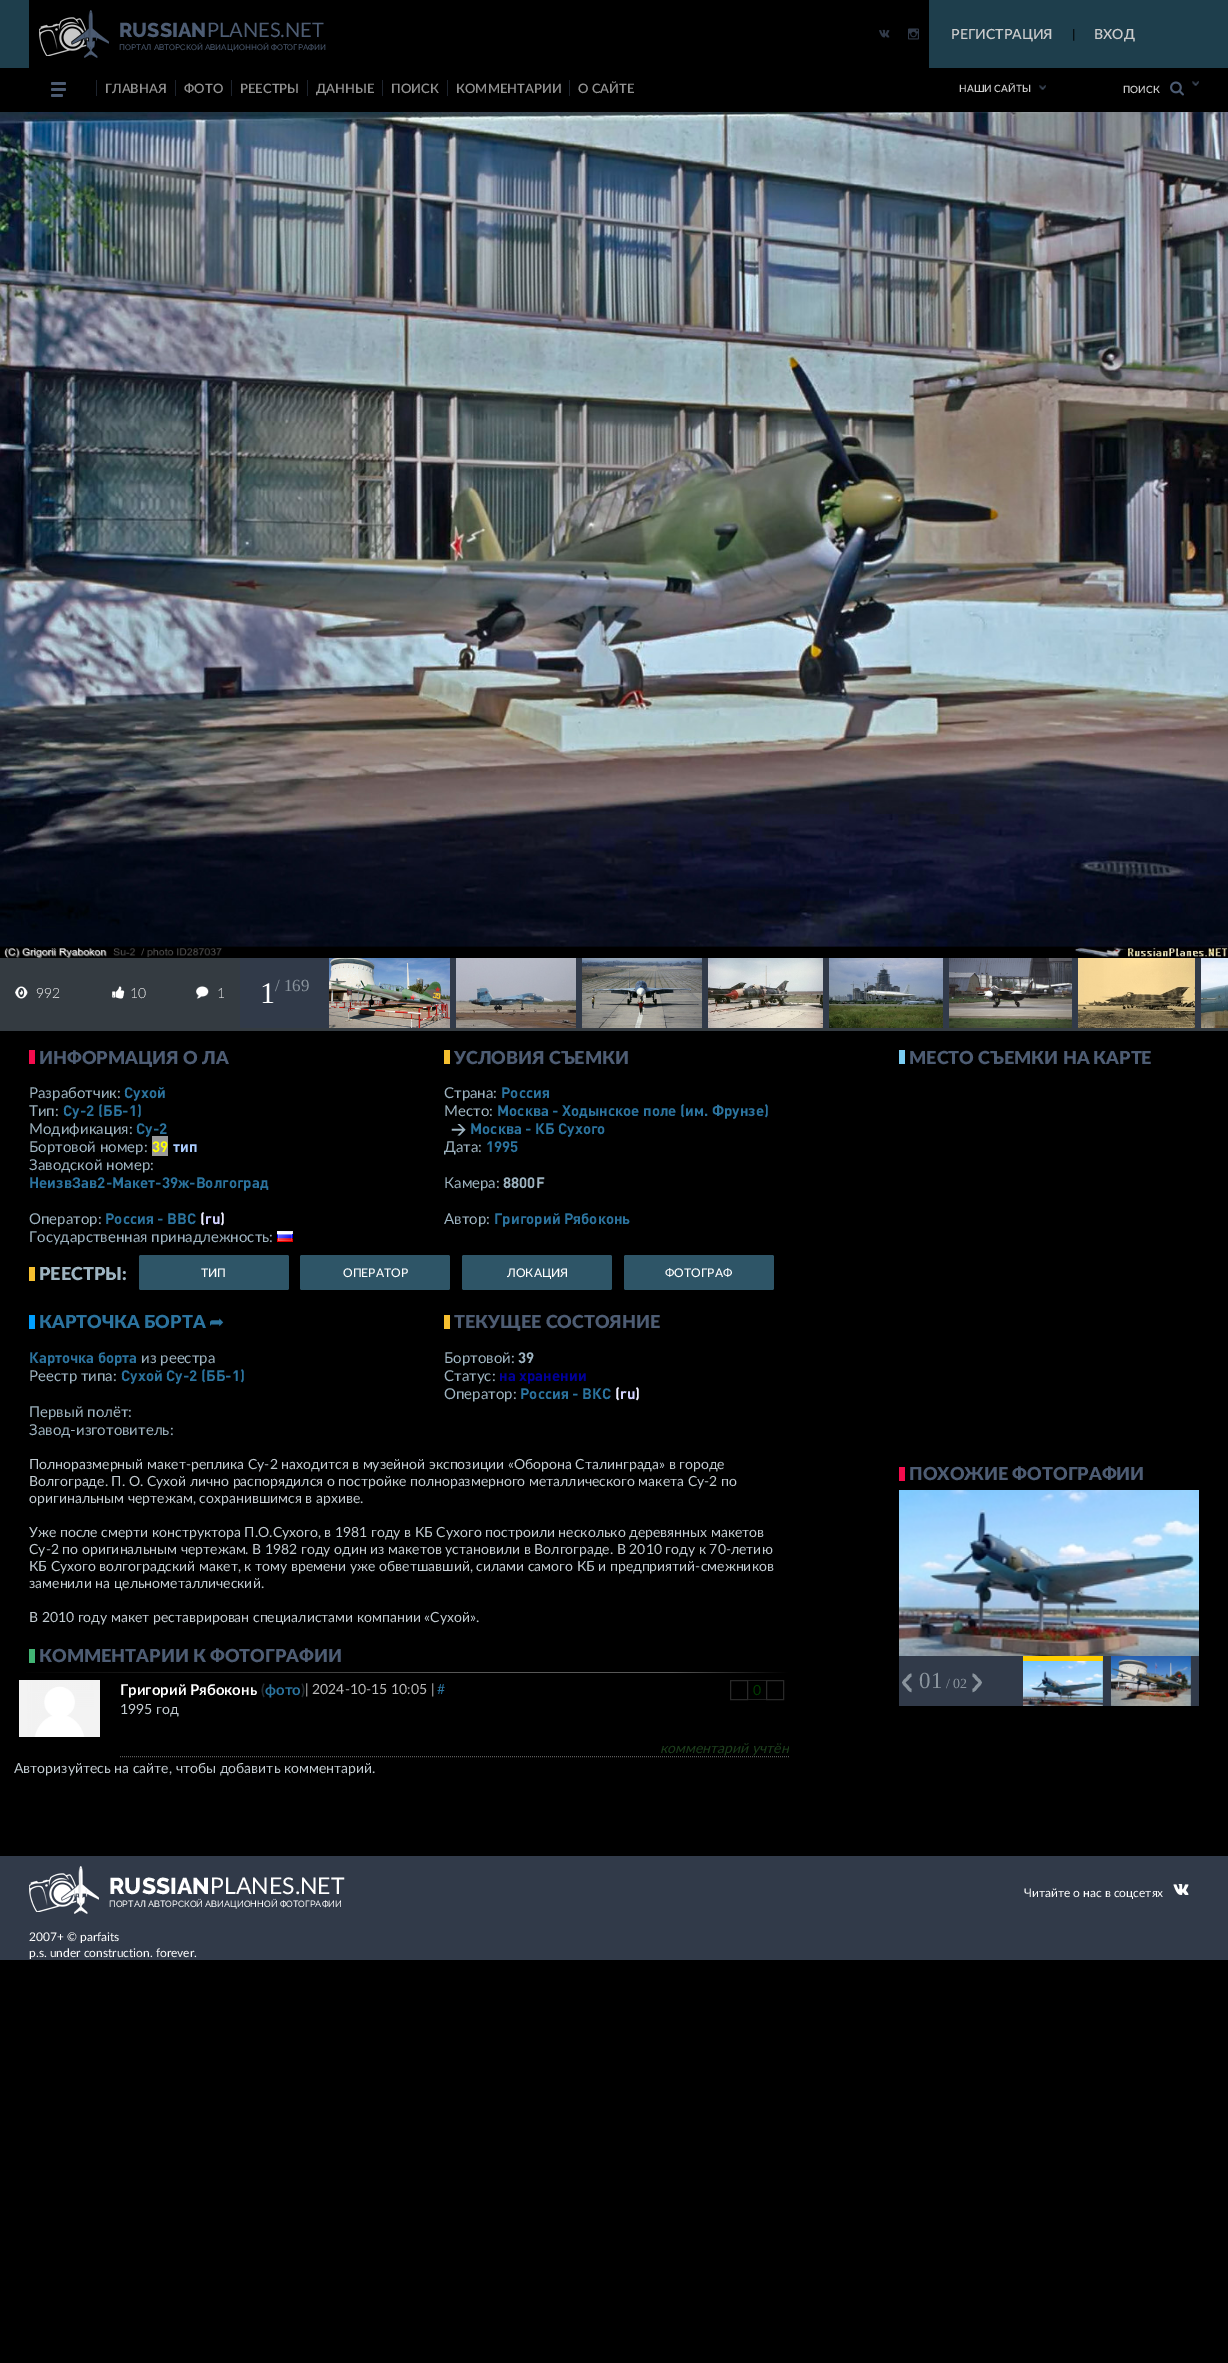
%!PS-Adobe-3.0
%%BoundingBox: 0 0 1228 2363
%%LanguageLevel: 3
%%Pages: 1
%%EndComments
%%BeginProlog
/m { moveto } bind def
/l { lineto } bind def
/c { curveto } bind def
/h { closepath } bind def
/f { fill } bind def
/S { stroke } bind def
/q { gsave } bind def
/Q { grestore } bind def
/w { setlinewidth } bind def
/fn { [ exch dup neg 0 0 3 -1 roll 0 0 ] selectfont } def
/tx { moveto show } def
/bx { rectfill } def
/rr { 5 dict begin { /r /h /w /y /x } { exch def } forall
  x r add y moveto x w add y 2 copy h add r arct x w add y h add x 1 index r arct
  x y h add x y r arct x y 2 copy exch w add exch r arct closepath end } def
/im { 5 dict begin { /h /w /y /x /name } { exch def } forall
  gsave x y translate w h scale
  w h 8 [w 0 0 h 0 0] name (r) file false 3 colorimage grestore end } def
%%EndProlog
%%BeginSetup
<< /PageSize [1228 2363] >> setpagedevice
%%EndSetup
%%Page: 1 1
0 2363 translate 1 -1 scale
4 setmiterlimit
0 setgray
0 0 1228 2363 bx
0.118 0.243 0.298 setrgbcolor
0 0 1228 68 bx
0 setgray
29 0 900 68 bx
(image0.raw) 39 10 70 48 im
/Raleway-ExtraBold 20 fn
0.302 0.361 0.451 setrgbcolor
(RUSSIAN) 119 37 tx
/Lato-Regular 20 fn
(PLANES.NET) 207 37 tx
/Raleway-Medium 8 fn
(ПОРТАЛ АВТОРСКОЙ АВИАЦИОННОЙ ФОТОГРАФИИ) 119 50 tx
(image1.raw) 879 29 11 9 im
(image2.raw) 908 28 11 12 im
/Lato-SemiBold 14 fn
0.8 setgray
(РЕГИСТРАЦИЯ) 951 39 tx
/Roboto-Regular 14 fn
0 setgray
(|) 1072 39 tx
/Lato-SemiBold 14 fn
0.8 setgray
(ВХОД) 1094 39 tx
0.298 0.357 0.447 setrgbcolor
51 82 15 3 1.5 rr f
51 88 15 3 1.5 rr f
51 94 12 3 1.5 rr f
0.118 0.141 0.18 setrgbcolor
96 80 1 16 bx
/Lato-SemiBold 13 fn
0.573 setgray
(ГЛАВНАЯ) 105 93 tx
0.118 0.141 0.18 setrgbcolor
175 80 1 16 bx
0.573 setgray
(ФОТО) 184 93 tx
0.118 0.141 0.18 setrgbcolor
231 80 1 16 bx
0.573 setgray
(РЕЕСТРЫ) 240 93 tx
0.118 0.141 0.18 setrgbcolor
307 80 1 16 bx
0.573 setgray
(ДАННЫЕ) 316 93 tx
0.118 0.141 0.18 setrgbcolor
382 80 1 16 bx
0.573 setgray
(ПОИСК) 391 93 tx
0.118 0.141 0.18 setrgbcolor
447 80 1 16 bx
0.573 setgray
(КОММЕНТАРИИ) 456 93 tx
0.118 0.141 0.18 setrgbcolor
569 80 1 16 bx
0.573 setgray
(О САЙТЕ) 578 93 tx
/Lato-SemiBold 10 fn
0.8 setgray
(НАШИ САЙТЫ) 959 92 tx
(image3.raw) 1039 85 7 5 im
(image4.raw) 1170 81 14 15 im
(image3.raw) 1192 81 7 5 im
(ПОИСК) 1123 93 tx
(image5.raw) 0 112 1228 846 im
0.192 0.227 0.286 setrgbcolor
240 958 961 70 bx
0.204 0.231 0.255 setrgbcolor
0 958 240 70 bx
(image6.raw) 15 986 13 13 im
/Lato-Light 14 fn
1 setgray
(992) 36 998 tx
(image7.raw) 112 986 13 13 im
(10) 130 998 tx
(image8.raw) 196 986 13 13 im
(1) 217 998 tx
/LiberationSerif-Regular 30 fn
(1) 260 1003 tx
/LiberationSerif-Regular 17 fn
0.541 0.58 0.616 setrgbcolor
(/ 169) 275 991 tx
(image9.raw) 329 958 121 70 im
(image10.raw) 456 958 120 70 im
(image11.raw) 582 958 120 70 im
(image12.raw) 708 958 115 70 im
(image13.raw) 829 958 114 70 im
(image14.raw) 949 958 123 70 im
(image15.raw) 1078 958 117 70 im
(image16.raw) 1201 958 27 70 im
0.204 0.231 0.255 setrgbcolor
0 1028 1228 3 bx
0.961 0.047 0.302 setrgbcolor
29 1050 6 14 bx
/Lato-Black 18 fn
0.302 0.361 0.451 setrgbcolor
(ИНФОРМАЦИЯ О ЛА) 39 1064 tx
/Lato-Regular 15 fn
0.62 0.706 0.757 setrgbcolor
(Разработчик:) 29 1098 tx
/DIN-Bold 15 fn
0.169 0.451 0.62 setrgbcolor
(Сухой) 124 1098 tx
/Lato-Regular 15 fn
0.62 0.706 0.757 setrgbcolor
(Тип:) 29 1116 tx
/DIN-Bold 15 fn
0.169 0.451 0.62 setrgbcolor
(Су-2 \(ББ-1\)) 63 1116 tx
/Lato-Regular 15 fn
0.62 0.706 0.757 setrgbcolor
(Модификация:) 29 1134 tx
/DIN-Bold 15 fn
0.169 0.451 0.62 setrgbcolor
(Су-2) 136 1134 tx
/Lato-Regular 15 fn
0.62 0.706 0.757 setrgbcolor
(Бортовой номер:) 29 1152 tx
0.6 setgray
152 1136 16 20 bx
/DIN-Bold 15 fn
1 1 0 setrgbcolor
(39) 152 1152 tx
0.667 0.8 1 setrgbcolor
(тип) 173 1152 tx
/Lato-Regular 15 fn
0.62 0.706 0.757 setrgbcolor
(Заводской номер:) 29 1170 tx
/DIN-Bold 15 fn
0.169 0.451 0.62 setrgbcolor
(НеизвЗав2-Макет-39ж-Волгоград) 29 1188 tx
/Lato-Regular 15 fn
0.62 0.706 0.757 setrgbcolor
(Оператор:) 29 1224 tx
/DIN-Bold 15 fn
0.169 0.451 0.62 setrgbcolor
(Россия - ВВС) 105 1224 tx
0.933 0.933 1 setrgbcolor
(\() 200 1224 tx
0.816 0.816 1 setrgbcolor
(ru) 205 1224 tx
0.933 0.933 1 setrgbcolor
(\)) 220 1224 tx
/Lato-Regular 15 fn
0.62 0.706 0.757 setrgbcolor
(Государственная принадлежность:) 29 1242 tx
(image17.raw) 277 1231 16 11 im
0.965 0.749 0.184 setrgbcolor
444 1050 6 14 bx
/Lato-Black 18 fn
0.302 0.361 0.451 setrgbcolor
(УСЛОВИЯ СЪЕМКИ) 454 1064 tx
/Lato-Regular 15 fn
0.62 0.706 0.757 setrgbcolor
(Страна:) 444 1098 tx
/DIN-Bold 15 fn
0.169 0.451 0.62 setrgbcolor
(Россия) 501 1098 tx
(Москва - Ходынское поле \(им. Фрунзе\)) 497 1116 tx
0.62 0.706 0.757 setrgbcolor
(→) 451 1134 tx
0.169 0.451 0.62 setrgbcolor
(Москва - КБ Сухого) 470 1134 tx
/Lato-Regular 15 fn
0.62 0.706 0.757 setrgbcolor
(Место:) 444 1116 tx
(Дата:) 444 1152 tx
/DIN-Bold 15 fn
0.169 0.451 0.62 setrgbcolor
(1995) 486 1152 tx
/Lato-Regular 15 fn
0.62 0.706 0.757 setrgbcolor
(Камера:) 444 1188 tx
/DIN-Bold 15 fn
(8800F) 503 1188 tx
/Lato-Regular 15 fn
(Автор:) 444 1224 tx
/DIN-Bold 15 fn
0.169 0.451 0.62 setrgbcolor
(Григорий Рябоконь) 494 1224 tx
0.965 0.749 0.184 setrgbcolor
29 1267 6 14 bx
/Lato-Black 18 fn
0.62 0.706 0.757 setrgbcolor
(РЕЕСТРЫ:) 39 1280 tx
0.18 0.333 0.404 setrgbcolor
139 1255 150 35 2 rr f
/Lato-Medium 12 fn
1 setgray
(ТИП) 201 1277 tx
0.18 0.333 0.404 setrgbcolor
300 1255 150 35 2 rr f
1 setgray
(ОПЕРАТОР) 343 1277 tx
0.18 0.333 0.404 setrgbcolor
462 1255 150 35 2 rr f
1 setgray
(ЛОКАЦИЯ) 507 1277 tx
0.18 0.333 0.404 setrgbcolor
624 1255 150 35 2 rr f
1 setgray
(ФОТОГРАФ) 665 1277 tx
0 0.624 1 setrgbcolor
29 1315 6 14 bx
/Lato-Black 18 fn
0.169 0.451 0.62 setrgbcolor
(КАРТОЧКА БОРТА) 39 1328 tx
/DejaVuSans-Regular 18 fn
(➦) 209 1328 tx
/DIN-Bold 15 fn
(Карточка борта) 29 1363 tx
/Lato-Regular 15 fn
0.62 0.706 0.757 setrgbcolor
(из реестра) 141 1363 tx
(Реестр типа:) 29 1381 tx
/DIN-Bold 15 fn
0.169 0.451 0.62 setrgbcolor
(Сухой Су-2 \(ББ-1\)) 121 1381 tx
/Lato-Regular 15 fn
0.62 0.706 0.757 setrgbcolor
(Первый полёт:) 29 1417 tx
(Завод-изготовитель:) 29 1435 tx
0.965 0.749 0.184 setrgbcolor
444 1315 6 14 bx
/Lato-Black 18 fn
0.302 0.361 0.451 setrgbcolor
(ТЕКУЩЕЕ СОСТОЯНИЕ) 454 1328 tx
/Lato-Regular 15 fn
0.62 0.706 0.757 setrgbcolor
(Бортовой:) 444 1363 tx
/DIN-Bold 15 fn
(39) 518 1363 tx
/Lato-Regular 15 fn
(Статус:) 444 1381 tx
/DIN-Bold 15 fn
0 0 0.6 setrgbcolor
(на хранении) 499 1381 tx
/Lato-Regular 15 fn
0.62 0.706 0.757 setrgbcolor
(Оператор:) 444 1399 tx
/DIN-Bold 15 fn
0.169 0.451 0.62 setrgbcolor
(Россия - ВКС) 520 1399 tx
0.933 0.933 1 setrgbcolor
(\() 615 1399 tx
0.816 0.816 1 setrgbcolor
(ru) 620 1399 tx
0.933 0.933 1 setrgbcolor
(\)) 635 1399 tx
/Lato-Regular 14 fn
0.761 0.8 0.824 setrgbcolor
(Полноразмерный макет-реплика Су-2 находится в музейной экспозиции «Оборона Сталинграда» в городе) 29 1469 tx
(Волгограде. П. О. Сухой лично распорядился о постройке полноразмерного металлического макета Су-2 по) 29 1486 tx
(оригинальным чертежам, сохранившимся в архиве.) 29 1503 tx
(Уже после смерти конструктора П.О.Сухого, в 1981 году в КБ Сухого построили несколько деревянных макетов) 29 1537 tx
(Су-2 по оригинальным чертежам. В 1982 году один из макетов установили в Волгограде. В 2010 году к 70-летию) 29 1554 tx
(КБ Сухого волгоградский макет, к тому времени уже обветшавший, силами самого КБ и предприятий-смежников) 29 1571 tx
(заменили на цельнометаллический.) 29 1588 tx
(В 2010 году макет реставрирован специалистами компании «Сухой».) 29 1622 tx
0.259 0.71 0.455 setrgbcolor
29 1649 6 14 bx
/Lato-Black 18 fn
0.302 0.361 0.451 setrgbcolor
(КОММЕНТАРИИ К ФОТОГРАФИИ) 39 1662 tx
q 26 1672 m 789 1672 l 789 1673 l 26 1673 l h clip newpath
<< /ShadingType 2 /ColorSpace /DeviceRGB /Coords [14 1673 789 1673] /Extend [true true] /Function << /FunctionType 3 /Domain [0 1] /Functions [<< /FunctionType 2 /Domain [0 1] /C0 [0 0 0] /C1 [0.345 0.345 0.345] /N 1 >> << /FunctionType 2 /Domain [0 1] /C0 [0.345 0.345 0.345] /C1 [0.345 0.345 0.345] /N 1 >> << /FunctionType 2 /Domain [0 1] /C0 [0.345 0.345 0.345] /C1 [0 0 0] /N 1 >>] /Bounds [0.55 0.85] /Encode [0 1 0 1 0 1] >> >> shfill Q
(image18.raw) 19 1680 81 57 im
/Lato-Bold 15 fn
1 setgray
(Григорий Рябоконь) 120 1695 tx
0.149 0.176 0.192 setrgbcolor
(\() 261 1695 tx
0.169 0.451 0.62 setrgbcolor
(фото) 265 1695 tx
0.149 0.176 0.192 setrgbcolor
(\)) 301 1695 tx
/Lato-Regular 14 fn
0.733 setgray
(| 2024-10-15 10:05 |) 305 1694 tx
0.169 0.451 0.62 setrgbcolor
(#) 437 1694 tx
0.161 setgray
730.5 1680.5 17 19 rectstroke
0.129 setgray
748 1680 18 1 bx
748 1699 18 1 bx
0 0.235 0 setrgbcolor
(0) 753 1695 tx
0.161 setgray
766.5 1680.5 17 19 rectstroke
0.761 0.8 0.824 setrgbcolor
(1995 год) 120 1714 tx
0.361 setgray
[1 1] 0 setdash
120 1756.5 m 789 1756.5 l S
q
100 1680 689 77 rectclip
/Lato-Italic 14 fn
0.11 0.239 0.11 setrgbcolor
(комментарий учтён) 660 1753 tx
Q
0.761 0.8 0.824 setrgbcolor
(Авторизуйтесь на сайте, чтобы добавить комментарий.) 14 1773 tx
0.475 0.8 0.949 setrgbcolor
899 1050 6 14 bx
/Lato-Black 18 fn
0.302 0.361 0.451 setrgbcolor
(МЕСТО СЪЕМКИ НА КАРТЕ) 909 1064 tx
0.961 0.047 0.302 setrgbcolor
899 1467 6 14 bx
0.302 0.361 0.451 setrgbcolor
(ПОХОЖИЕ ФОТОГРАФИИ) 909 1480 tx
(image19.raw) 899 1490 300 166 im
0.192 0.227 0.286 setrgbcolor
899 1656 300 50 bx
0.996 0.808 0 setrgbcolor
1023 1656 80 5 bx
(image20.raw) 1023 1661 80 45 im
(image21.raw) 1111 1656 80 50 im
0.541 0.58 0.616 setrgbcolor
3 w
[] 0 setdash
911.5 1690.5 m 910 1690.5 908 1688 907.5 1687 c 902.5 1682 902.5 1683 907.5 1678.5 c 908 1677.5 910 1675 911.5 1675 c S
/LiberationSerif-Regular 23 fn
(01) 919 1688 tx
/LiberationSerif-Regular 14 fn
(/ 02) 946 1688 tx
972.5 1675 m 974 1675 976 1677.5 976.5 1678.5 c 981.5 1683 981.5 1682 976.5 1687 c 976 1688 974 1690.5 972.5 1690.5 c S
0.192 0.227 0.286 setrgbcolor
0 1856 1228 104 bx
(image22.raw) 29 1866 70 48 im
/Raleway-ExtraBold 23 fn
1 setgray
(RUSSIAN) 109 1894 tx
/Lato-Regular 23 fn
(PLANES.NET) 210 1894 tx
/Raleway-Medium 9 fn
(ПОРТАЛ АВТОРСКОЙ АВИАЦИОННОЙ ФОТОГРАФИИ) 109 1907 tx
/Lato-Regular 12 fn
(Читайте о нас в соцсетях) 1024 1897 tx
(image23.raw) 1173 1884 16 11 im
(2007+ © parfaits) 29 1941 tx
(p.s. under construction. forever.) 29 1957 tx
showpage
%%EOF
